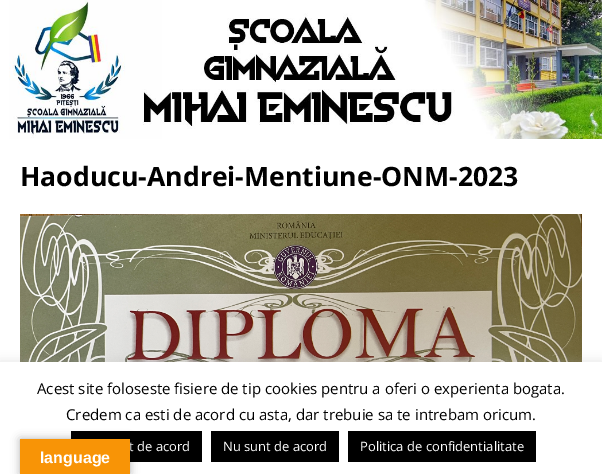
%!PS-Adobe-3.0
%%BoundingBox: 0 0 602 474
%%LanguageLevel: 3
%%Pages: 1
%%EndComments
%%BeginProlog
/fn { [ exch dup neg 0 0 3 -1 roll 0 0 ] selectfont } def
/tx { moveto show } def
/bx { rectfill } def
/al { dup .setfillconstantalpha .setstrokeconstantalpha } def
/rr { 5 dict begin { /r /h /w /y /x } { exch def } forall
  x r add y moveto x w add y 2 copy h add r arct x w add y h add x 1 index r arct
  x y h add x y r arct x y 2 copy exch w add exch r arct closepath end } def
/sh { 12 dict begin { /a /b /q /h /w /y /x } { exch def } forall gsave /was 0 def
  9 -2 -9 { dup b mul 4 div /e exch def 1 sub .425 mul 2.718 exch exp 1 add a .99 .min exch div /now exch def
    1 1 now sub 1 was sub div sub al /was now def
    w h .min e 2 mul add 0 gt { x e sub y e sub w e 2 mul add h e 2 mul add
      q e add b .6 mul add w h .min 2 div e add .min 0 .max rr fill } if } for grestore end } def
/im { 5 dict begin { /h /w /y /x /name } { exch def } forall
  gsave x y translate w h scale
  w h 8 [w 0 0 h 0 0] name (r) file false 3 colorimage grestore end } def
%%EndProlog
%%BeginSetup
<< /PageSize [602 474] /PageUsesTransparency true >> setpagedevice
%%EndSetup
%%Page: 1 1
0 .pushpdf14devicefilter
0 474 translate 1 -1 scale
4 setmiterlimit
1 setgray
0 0 602 474 bx
(image0.raw) 9 0 593 139 im
/OpenSans-Bold 26.6 fn
0 setgray
(Haoducu-Andrei-Mentiune-ONM-2023) 20 186 tx
(image1.raw) 20 214 562 148 im
0.675 0.671 0.671 setrgbcolor
0 361 602 112 0 5 0.3 sh
1 setgray
0 362 602 112 bx
/OpenSans-Regular 15 fn
0 setgray
(Acest site foloseste fisiere de tip cookies pentru a oferi o experienta bogata.) 37 394 tx
(Credem ca esti de acord cu asta, dar trebuie sa te intrebam oricum.) 66 420 tx
71 431 131 31 bx
/OpenSans-Regular 13 fn
1 setgray
(t de acord) 129 451 tx
0 setgray
211 431 128 31 bx
1 setgray
(Nu sunt de acord) 223 451 tx
0 setgray
348 431 188 31 bx
1 setgray
(Politica de confidentialitate) 360 451 tx
0 setgray
20 439 110 35 0 4.5 0.3 sh
0.973 0.58 0.024 setrgbcolor
20 439 110 35 bx
/LiberationSans-Bold 16 fn
1 setgray
(language) 40 463 tx
.poppdf14devicefilter showpage
%%EOF
